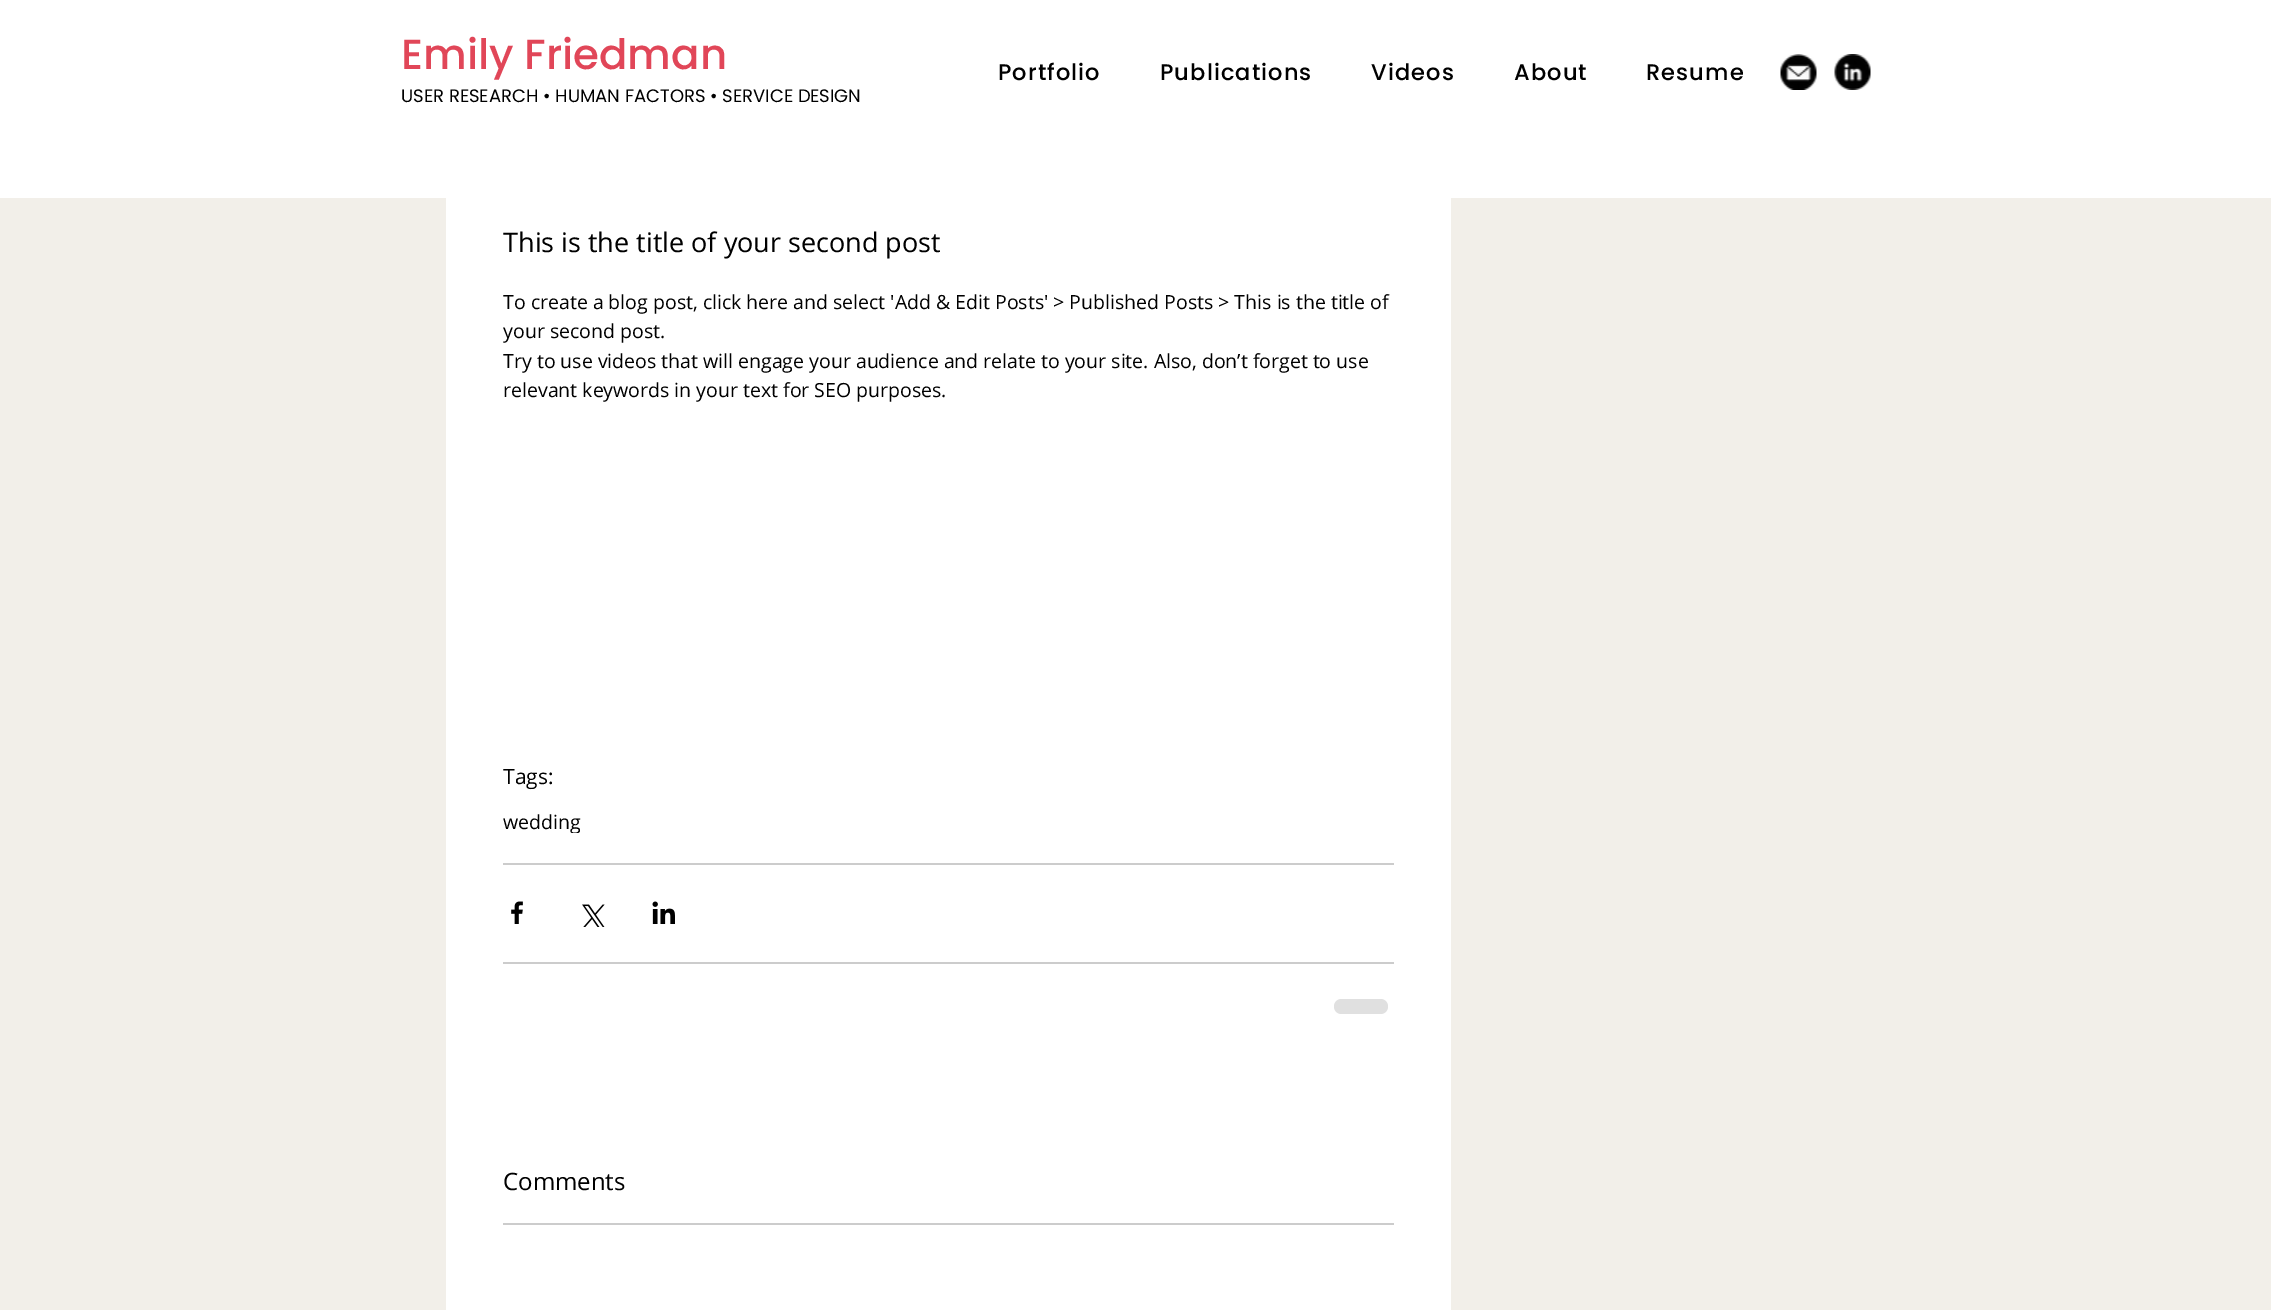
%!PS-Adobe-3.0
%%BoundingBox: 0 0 2271 1310
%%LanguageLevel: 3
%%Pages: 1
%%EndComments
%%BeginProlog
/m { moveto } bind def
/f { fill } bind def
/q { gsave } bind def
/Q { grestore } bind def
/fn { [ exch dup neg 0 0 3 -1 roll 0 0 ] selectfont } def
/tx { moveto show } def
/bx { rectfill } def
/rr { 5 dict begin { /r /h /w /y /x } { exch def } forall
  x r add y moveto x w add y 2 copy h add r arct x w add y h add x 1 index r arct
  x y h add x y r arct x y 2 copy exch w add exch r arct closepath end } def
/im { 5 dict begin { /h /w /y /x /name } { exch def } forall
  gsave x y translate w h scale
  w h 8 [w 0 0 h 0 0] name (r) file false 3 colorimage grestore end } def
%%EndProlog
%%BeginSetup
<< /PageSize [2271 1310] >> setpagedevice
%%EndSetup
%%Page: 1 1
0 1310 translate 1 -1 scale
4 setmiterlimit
0.949 0.937 0.914 setrgbcolor
0 0 2271 1310 bx
1 setgray
0 0 2271 198 bx
/Poppins-Medium 42 fn
0.882 0.275 0.345 setrgbcolor
(Emily Friedman) 401 69 tx
/Poppins-Regular 18 fn
0 setgray
(USER RESEARCH • HUMAN FACTORS • SERVICE DESIGN) 401 102 tx
/Poppins-Medium 22.5 fn
998 80 m 1.1 0 (Portfolio) ashow
1160 80 m 1.1 0 (Publications) ashow
1371 80 m 1.1 0 (Videos) ashow
1514 80 m 1.1 0 (About) ashow
1646 80 m 1.1 0 (Resume) ashow
(image0.raw) 1780 54 37 36 im
(image1.raw) 1834 54 37 36 im
1 setgray
446 198 1005 1112 bx
/OpenSans-Regular 27 fn
0 setgray
(This is the title of your second post) 503 252 tx
/OpenSans-Regular 19.5 fn
(To create a blog post, click here and select 'Add & Edit Posts' > Published Posts > This is the title of) 503 309 tx
(your second post.) 503 338 tx
(Try to use videos that will engage your audience and relate to your site. Also, don’t forget to use) 503 368 tx
(relevant keywords in your text for SEO purposes.) 503 397 tx
/OpenSans-Regular 21 fn
(Tags:) 503 784 tx
q
503 809 78 24 rectclip
/OpenSans-Regular 19.5 fn
(wedding) 503 829 tx
Q
0.8 setgray
503 863 891 2 bx
(image2.raw) 511 901 12 23 im
(image3.raw) 582 904 23 23 im
(image4.raw) 652 901 23 23 im
503 962 891 2 bx
0.878 setgray
1334 999 54 15 7.5 rr f
/OpenSans-Regular 24 fn
0 setgray
(Comments) 503 1190 tx
0.8 setgray
503 1223 891 2 bx
showpage
%%EOF
